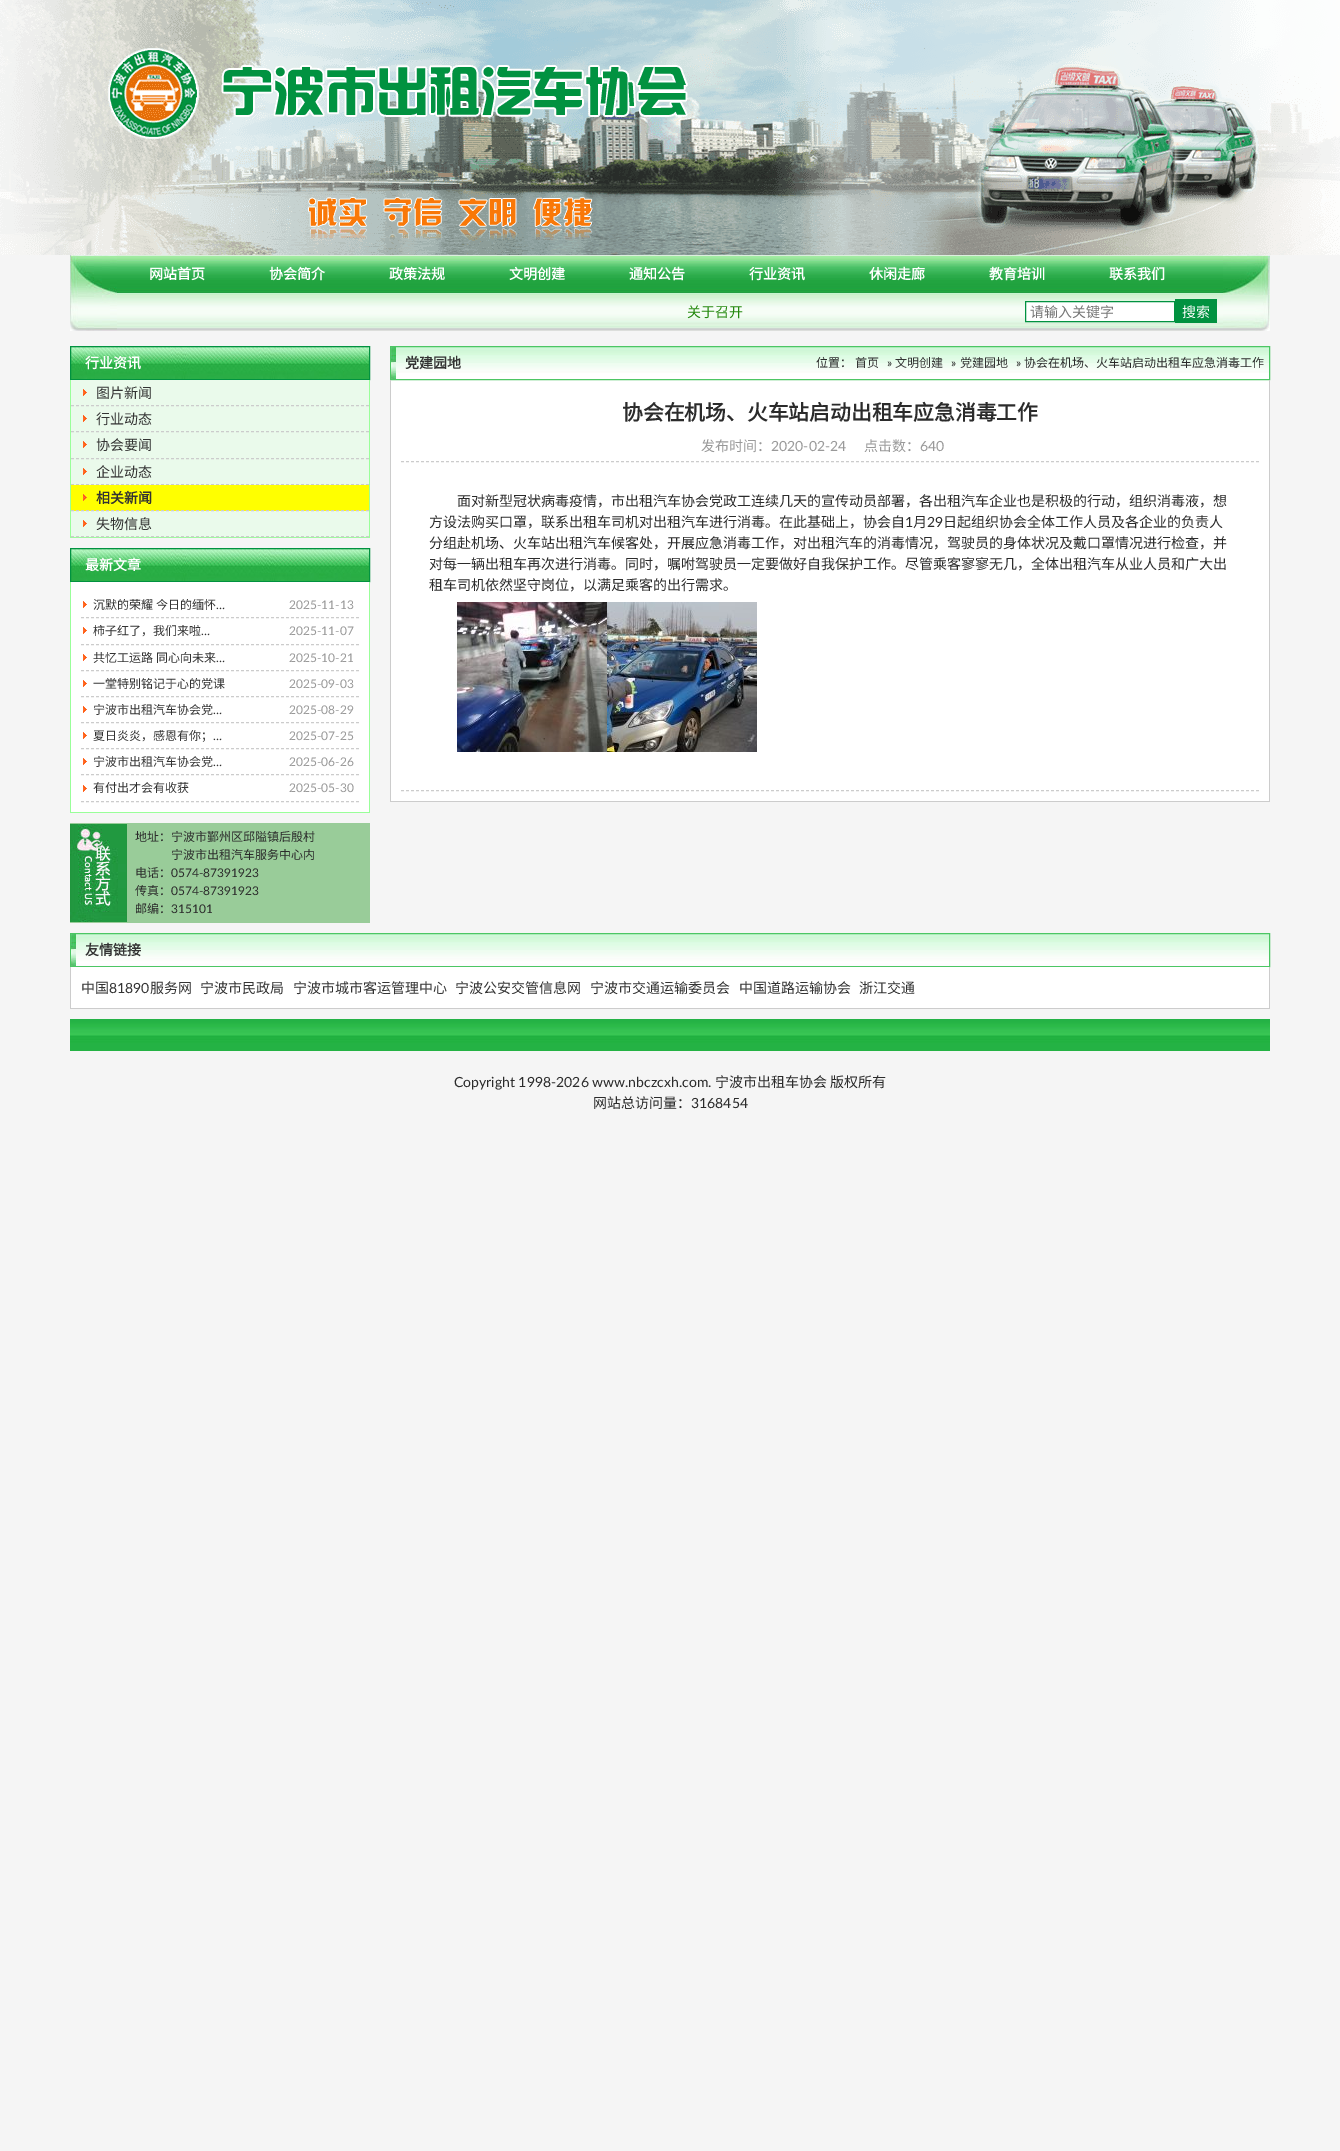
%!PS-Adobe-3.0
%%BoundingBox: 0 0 1340 2151
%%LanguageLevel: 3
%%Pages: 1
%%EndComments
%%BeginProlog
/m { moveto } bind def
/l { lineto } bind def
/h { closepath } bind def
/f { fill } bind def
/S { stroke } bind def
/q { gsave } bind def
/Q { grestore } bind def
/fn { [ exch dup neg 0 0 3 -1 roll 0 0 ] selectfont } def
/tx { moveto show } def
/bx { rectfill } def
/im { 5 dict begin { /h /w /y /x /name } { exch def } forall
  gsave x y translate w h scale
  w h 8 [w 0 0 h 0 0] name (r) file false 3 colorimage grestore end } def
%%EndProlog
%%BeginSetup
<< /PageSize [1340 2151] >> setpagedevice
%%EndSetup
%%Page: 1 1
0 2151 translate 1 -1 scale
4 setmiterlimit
0.961 setgray
0 0 1340 2151 bx
(image0.raw) 0 0 1340 255 im
(image1.raw) 117 255 1106 76 im
(image2.raw) 70 255 47 76 im
/NotoSansCJKSC-Bold 14 fn
1 setgray
(网站首页) 149 279 tx
(协会简介) 269 279 tx
(政策法规) 389 279 tx
(文明创建) 509 279 tx
(通知公告) 629 279 tx
(行业资讯) 749 279 tx
(休闲走廊) 869 279 tx
(教育培训) 989 279 tx
(联系我们) 1109 279 tx
/NotoSansCJKSC-Regular 14 fn
0.141 0.537 0.051 setrgbcolor
(关于召开) 687 317 tx
1 setgray
1025.5 301.5 m 1174.5 301.5 l 1174.5 321.5 l 1025.5 321.5 l h q f Q
0.004 0.573 0.251 setrgbcolor
S
0.459 setgray
(请输入关键字) 1030 317 tx
0.004 0.573 0.251 setrgbcolor
1175 299 42 24 bx
1 setgray
(搜索) 1182 317 tx
(image3.raw) 1223 255 47 76 im
(image4.raw) 71 347 298 32 im
0.004 0.573 0.251 setrgbcolor
70.5 346.5 299 33 rectstroke
/NotoSansCJKSC-Bold 14 fn
1 setgray
(行业资讯) 85 368 tx
0.6 1 0.6 setrgbcolor
369 380 1 158 bx
70 537 300 1 bx
70 380 1 158 bx
0.918 0.98 0.922 setrgbcolor
71 380 298 157 bx
(image5.raw) 83 389 4 7 im
0.8 setgray
[3 2] 0 setdash
71 405.5 m 369 405.5 l S
/NotoSansCJKSC-Regular 14 fn
0.2 setgray
(图片新闻) 96 398 tx
(image5.raw) 83 415 4 7 im
0.8 setgray
71 431.5 m 369 431.5 l S
0.2 setgray
(行业动态) 96 424 tx
(image5.raw) 83 441 4 7 im
0.8 setgray
71 458.5 m 369 458.5 l S
0.2 setgray
(协会要闻) 96 450 tx
(image5.raw) 83 468 4 7 im
0.8 setgray
71 484.5 m 369 484.5 l S
0.2 setgray
(企业动态) 96 477 tx
1 1 0 setrgbcolor
71 485 298 26 bx
(image6.raw) 83 494 4 7 im
0.8 setgray
71 510.5 m 369 510.5 l S
/NotoSansCJKSC-Bold 14 fn
0.2 setgray
(相关新闻) 96 503 tx
(image5.raw) 83 520 4 7 im
0.8 setgray
71 536.5 m 369 536.5 l S
/NotoSansCJKSC-Regular 14 fn
0.2 setgray
(失物信息) 96 529 tx
(image4.raw) 71 549 298 32 im
0.004 0.573 0.251 setrgbcolor
[] 0 setdash
70.5 548.5 299 33 rectstroke
/NotoSansCJKSC-Bold 14 fn
1 setgray
(最新文章) 85 570 tx
71 582 298 230 bx
0.6 1 0.6 setrgbcolor
369 582 1 231 bx
70 812 300 1 bx
70 582 1 231 bx
(image7.raw) 83 601 4 7 im
0.8 setgray
[3 2] 0 setdash
81 617.5 m 359 617.5 l S
/NotoSansCJKSC-Regular 12 fn
0.2 setgray
(沉默的荣耀 今日的缅怀) 93 609 tx
/Lato-Regular 12 fn
(…) 216 609 tx
0.6 setgray
(2025-11-13) 289 609 tx
(image7.raw) 83 627 4 7 im
0.8 setgray
81 644.5 m 359 644.5 l S
/NotoSansCJKSC-Regular 12 fn
0.2 setgray
(柿子红了，我们来啦) 93 635 tx
/Lato-Regular 12 fn
(…) 201 635 tx
0.6 setgray
(2025-11-07) 289 635 tx
(image7.raw) 83 654 4 7 im
0.8 setgray
81 670.5 m 359 670.5 l S
/NotoSansCJKSC-Regular 12 fn
0.2 setgray
(共忆工运路 同心向未来) 93 662 tx
/Lato-Regular 12 fn
(…) 216 662 tx
0.6 setgray
(2025-10-21) 289 662 tx
(image7.raw) 83 680 4 7 im
0.8 setgray
81 696.5 m 359 696.5 l S
/NotoSansCJKSC-Regular 12 fn
0.2 setgray
(一堂特别铭记于心的党课) 93 688 tx
/Lato-Regular 12 fn
0.6 setgray
(2025-09-03) 289 688 tx
(image7.raw) 83 706 4 7 im
0.8 setgray
81 722.5 m 359 722.5 l S
/NotoSansCJKSC-Regular 12 fn
0.2 setgray
(宁波市出租汽车协会党) 93 714 tx
/Lato-Regular 12 fn
(…) 213 714 tx
0.6 setgray
(2025-08-29) 289 714 tx
(image7.raw) 83 732 4 7 im
0.8 setgray
81 748.5 m 359 748.5 l S
/NotoSansCJKSC-Regular 12 fn
0.2 setgray
(夏日炎炎，感恩有你；) 93 740 tx
/Lato-Regular 12 fn
(…) 213 740 tx
0.6 setgray
(2025-07-25) 289 740 tx
(image7.raw) 83 758 4 7 im
0.8 setgray
81 774.5 m 359 774.5 l S
/NotoSansCJKSC-Regular 12 fn
0.2 setgray
(宁波市出租汽车协会党) 93 766 tx
/Lato-Regular 12 fn
(…) 213 766 tx
0.6 setgray
(2025-06-26) 289 766 tx
(image7.raw) 83 785 4 7 im
0.8 setgray
81 801.5 m 359 801.5 l S
/NotoSansCJKSC-Regular 12 fn
0.2 setgray
(有付出才会有收获) 93 792 tx
/Lato-Regular 12 fn
0.6 setgray
(2025-05-30) 289 792 tx
0.6 0.8 0.6 setrgbcolor
70 823 300 100 bx
(image8.raw) 70 824 57 98 im
/NotoSansCJKSC-Regular 12 fn
0.169 setgray
(地址：宁波市鄞州区邱隘镇后殷村) 135 841 tx
(宁波市出租汽车服务中心内) 171 859 tx
(电话：) 135 877 tx
/Lato-Regular 12 fn
(0574-87391923) 171 877 tx
/NotoSansCJKSC-Regular 12 fn
(传真：) 135 895 tx
/Lato-Regular 12 fn
(0574-87391923) 171 895 tx
/NotoSansCJKSC-Regular 12 fn
(邮编：) 135 913 tx
/Lato-Regular 12 fn
(315101) 171 913 tx
1 setgray
391 373 878 428 bx
(image9.raw) 396 347 873 26 im
0.298 0.776 0.392 setrgbcolor
[] 0 setdash
390.5 346.5 879 33 rectstroke
(image10.raw) 391 347 5 32 im
/NotoSansCJKSC-Bold 14 fn
0.2 setgray
(党建园地) 405 368 tx
/NotoSansCJKSC-Regular 12 fn
0.169 setgray
(位置：) 816 367 tx
0.2 setgray
(首页) 855 367 tx
/Lato-Regular 12 fn
0.169 setgray
(») 887 367 tx
/NotoSansCJKSC-Regular 12 fn
0.2 setgray
(文明创建) 895 367 tx
/Lato-Regular 12 fn
0.169 setgray
(») 951 367 tx
/NotoSansCJKSC-Regular 12 fn
0.2 setgray
(党建园地) 960 367 tx
/Lato-Regular 12 fn
0.169 setgray
(») 1016 367 tx
/NotoSansCJKSC-Regular 12 fn
(协会在机场、火车站启动出租车应急消毒工作) 1024 367 tx
0.8 setgray
1269 380 1 422 bx
390 801 880 1 bx
390 380 1 422 bx
[3 2] 0 setdash
401 461.5 m 1259 461.5 l S
/NotoSansCJKSC-Bold 20.8 fn
0.169 setgray
(协会在机场、火车站启动出租车应急消毒工作) 622 420 tx
/NotoSansCJKSC-Regular 14 fn
0.6 setgray
(发布时间：) 701 451 tx
/Lato-Regular 14 fn
(2020-02-24) 771 451 tx
/NotoSansCJKSC-Regular 14 fn
(点击数：) 864 451 tx
/Lato-Regular 14 fn
(640) 920 451 tx
0.8 setgray
401 790.5 m 1259 790.5 l S
/NotoSansCJKSC-Regular 14 fn
0.169 setgray
(面对新型冠状病毒疫情，市出租汽车协会党政工连续几天的宣传动员部署，各出租汽车企业也是积极的行动，组织消毒液，想) 457 506 tx
(方设法购买口罩，联系出租车司机对出租汽车进行消毒。在此基础上，协会自) 429 527 tx
/Lato-Regular 14 fn
(1) 905 527 tx
/NotoSansCJKSC-Regular 14 fn
(月) 913 527 tx
/Lato-Regular 14 fn
(29) 927 527 tx
/NotoSansCJKSC-Regular 14 fn
(日起组织协会全体工作人员及各企业的负责人) 943 527 tx
(分组赴机场、火车站出租汽车候客处，开展应急消毒工作，对出租汽车的消毒情况，驾驶员的身体状况及戴口罩情况进行检查，并) 429 548 tx
(对每一辆出租车再次进行消毒。同时，嘱咐驾驶员一定要做好自我保护工作。尽管乘客寥寥无几，全体出租汽车从业人员和广大出) 429 569 tx
(租车司机依然坚守岗位，以满足乘客的出行需求。) 429 590 tx
(image11.raw) 457 602 150 150 im
(image12.raw) 607 602 150 150 im
(image13.raw) 76 934 1193 32 im
0.298 0.776 0.392 setrgbcolor
[] 0 setdash
70.5 933.5 1199 33 rectstroke
(image10.raw) 71 934 5 32 im
/NotoSansCJKSC-Bold 14 fn
0.2 setgray
(友情链接) 85 955 tx
1 setgray
71 967 1198 41 bx
0.8 setgray
1269 967 1 42 bx
70 1008 1200 1 bx
70 967 1 42 bx
/NotoSansCJKSC-Regular 14 fn
0.2 setgray
(中国) 81 993 tx
/Lato-Regular 14 fn
(81890) 109 993 tx
/NotoSansCJKSC-Regular 14 fn
(服务网) 150 993 tx
(宁波市民政局) 200 993 tx
(宁波市城市客运管理中心) 293 993 tx
(宁波公安交管信息网) 455 993 tx
(宁波市交通运输委员会) 590 993 tx
(中国道路运输协会) 739 993 tx
(浙江交通) 859 993 tx
(image14.raw) 70 1019 1200 32 im
/Lato-Regular 14 fn
0.169 setgray
(Copyright 1998-2026 www.nbczcxh.com.) 454 1087 tx
/NotoSansCJKSC-Regular 14 fn
(宁波市出租车协会) 715 1087 tx
(版权所有) 830 1087 tx
(网站总访问量：) 593 1108 tx
/Lato-Regular 14 fn
(3168454) 691 1108 tx
showpage
%%EOF
